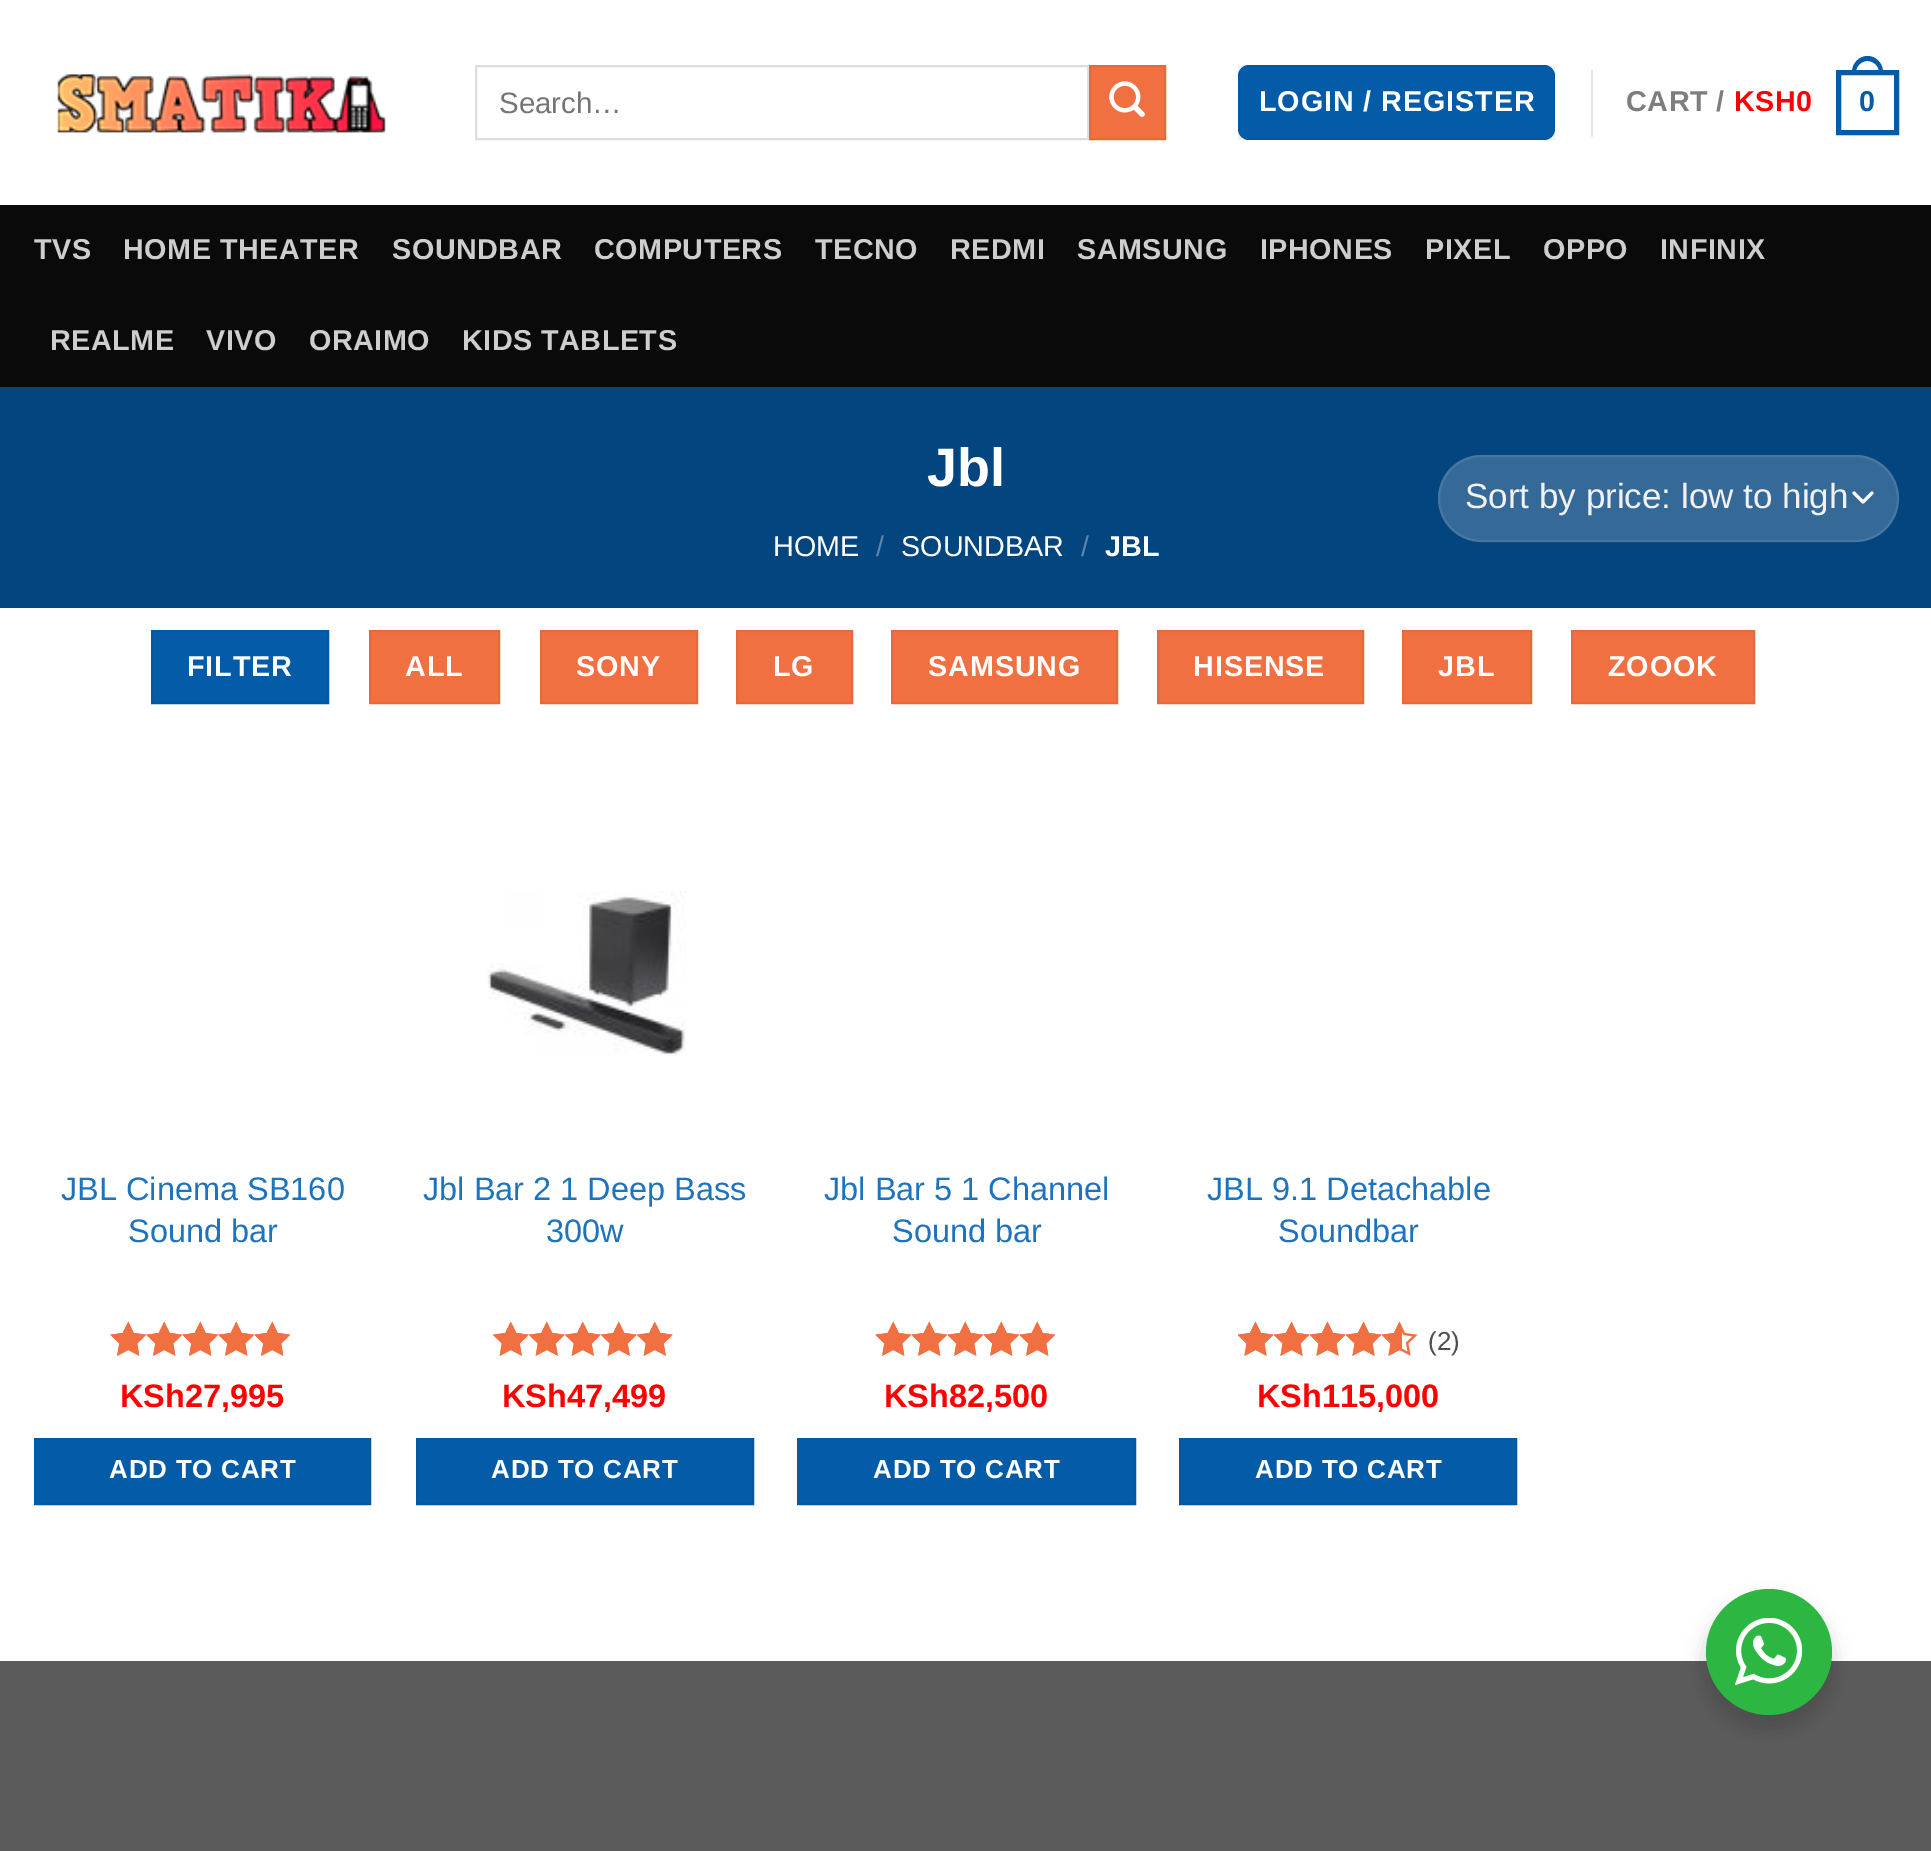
%!PS-Adobe-3.0
%%BoundingBox: 0 0 1931 1851
%%LanguageLevel: 3
%%Pages: 1
%%EndComments
%%BeginProlog
/m { moveto } bind def
/l { lineto } bind def
/c { curveto } bind def
/h { closepath } bind def
/f { fill } bind def
/S { stroke } bind def
/q { gsave } bind def
/Q { grestore } bind def
/w { setlinewidth } bind def
/fn { [ exch dup neg 0 0 3 -1 roll 0 0 ] selectfont } def
/tx { moveto show } def
/bx { rectfill } def
/al { dup .setfillconstantalpha .setstrokeconstantalpha } def
/ci { newpath 0 360 arc closepath } def
/rr { 5 dict begin { /r /h /w /y /x } { exch def } forall
  x r add y moveto x w add y 2 copy h add r arct x w add y h add x 1 index r arct
  x y h add x y r arct x y 2 copy exch w add exch r arct closepath end } def
/sh { 12 dict begin { /a /b /q /h /w /y /x } { exch def } forall gsave /was 0 def
  9 -2 -9 { dup b mul 4 div /e exch def 1 sub .425 mul 2.718 exch exp 1 add a .99 .min exch div /now exch def
    1 1 now sub 1 was sub div sub al /was now def
    w h .min e 2 mul add 0 gt { x e sub y e sub w e 2 mul add h e 2 mul add
      q e add b .6 mul add w h .min 2 div e add .min 0 .max rr fill } if } for grestore end } def
/im { 5 dict begin { /h /w /y /x /name } { exch def } forall
  gsave x y translate w h scale
  w h 8 [w 0 0 h 0 0] name (r) file false 3 colorimage grestore end } def
%%EndProlog
%%BeginSetup
<< /PageSize [1931 1851] /PageUsesTransparency true >> setpagedevice
%%EndSetup
%%Page: 1 1
0 .pushpdf14devicefilter
0 1851 translate 1 -1 scale
4 setmiterlimit
0.357 setgray
0 0 1931 1851 bx
1 setgray
0 0 1931 1661 bx
(image0.raw) 57 74 329 59 im
0.867 setgray
2 w
476 66 612 73 rectstroke
/LiberationSans-Regular 29.5 fn
0.459 setgray
(Search…) 499 113 tx
0.941 0.439 0.255 setrgbcolor
1090 66 m 1165 66 l 1165 139 l 1090 139 l h q f Q
0.894 0.416 0.243 setrgbcolor
S
(image1.raw) 1109 81 36 36 im
0.016 0.361 0.663 setrgbcolor
1238 65 317 75 11 rr f
0.05 al
0 setgray
1239 66 315 73 rectstroke
/LiberationSans-Bold 28.75 fn
1 al
1 setgray
1259 111 m 0.9 0 (LOGIN / REGISTER) ashow
0.902 setgray
1591 70 2 67 bx
0.49 setgray
1626 111 m 0.5 0 (CART /) ashow
1 0 0 setrgbcolor
1734 111 m 0.5 0 (KSH0) ashow
0.016 0.361 0.663 setrgbcolor
5 w
1838.5 72.5 58 60 rectstroke
1867.5 56 m 1876 56 1883 63.5 1883 72 c 1883 74 l 1852 74 l 1852 72 l 1852 63.5 1859 56 1867.5 56 c h 1867.5 61 m 1873.5 61 1879 66 1879 72 c 1879 74 l 1856 74 l 1856 72 l 1856 66 1861.5 61 1867.5 61 c h eofill
1859 111 m 0.5 0 (0) ashow
0.039 setgray
0 205 1931 182 bx
0.808 setgray
34 259 m 0.5 0 (TVS) ashow
123 259 m 0.5 0 (HOME THEATER) ashow
392 259 m 0.5 0 (SOUNDBAR) ashow
594 259 m 0.5 0 (COMPUTERS) ashow
815 259 m 0.5 0 (TECNO) ashow
950 259 m 0.5 0 (REDMI) ashow
1077 259 m 0.5 0 (SAMSUNG) ashow
1260 259 m 0.5 0 (IPHONES) ashow
1425 259 m 0.5 0 (PIXEL) ashow
1543 259 m 0.5 0 (OPPO) ashow
1660 259 m 0.5 0 (INFINIX) ashow
50 350 m 0.5 0 (REALME) ashow
206 350 m 0.5 0 (VIVO) ashow
309 350 m 0.5 0 (ORAIMO) ashow
462 350 m 0.5 0 (KIDS TABLETS) ashow
0.012 0.271 0.494 setrgbcolor
0 387 1931 221 bx
/LiberationSans-Bold 54 fn
1 setgray
(Jbl) 927 486 tx
/LiberationSans-Regular 28.75 fn
(HOME) 773 556 tx
0.357 0.525 0.671 setrgbcolor
(/) 876 556 tx
1 setgray
(SOUNDBAR) 901 556 tx
0.357 0.525 0.671 setrgbcolor
(/) 1081 556 tx
/LiberationSans-Bold 28.75 fn
1 setgray
(JBL) 1105 556 tx
0.208 0.416 0.596 setrgbcolor
1438 455 461 87 43.5 rr f
1 setgray
3 w
1 setlinecap
1 setlinejoin
1854 493 m 1863 502 l 1872 493 l S
0.09 al
2 w
0 setlinecap
0 setlinejoin
1439 456 459 85 42.5 rr S
/LiberationSans-Regular 35 fn
1 al
0.945 setgray
(Sort by price: low to high) 1465 508 tx
0.016 0.361 0.663 setrgbcolor
152 631 m 328 631 l 328 703 l 152 703 l h q f Q
0.016 0.341 0.631 setrgbcolor
S
/LiberationSans-Bold 28.75 fn
1 setgray
187 676 m 0.9 0 (FILTER) ashow
0.941 0.439 0.255 setrgbcolor
370 631 m 499 631 l 499 703 l 370 703 l h q f Q
0.894 0.416 0.243 setrgbcolor
S
1 setgray
405 676 m 0.9 0 (ALL) ashow
0.941 0.439 0.255 setrgbcolor
541 631 m 697 631 l 697 703 l 541 703 l h q f Q
0.894 0.416 0.243 setrgbcolor
S
1 setgray
576 676 m 0.9 0 (SONY) ashow
0.941 0.439 0.255 setrgbcolor
737 631 m 852 631 l 852 703 l 737 703 l h q f Q
0.894 0.416 0.243 setrgbcolor
S
1 setgray
773 676 m 0.9 0 (LG) ashow
0.941 0.439 0.255 setrgbcolor
892 631 m 1117 631 l 1117 703 l 892 703 l h q f Q
0.894 0.416 0.243 setrgbcolor
S
1 setgray
928 676 m 0.9 0 (SAMSUNG) ashow
0.941 0.439 0.255 setrgbcolor
1158 631 m 1363 631 l 1363 703 l 1158 703 l h q f Q
0.894 0.416 0.243 setrgbcolor
S
1 setgray
1193 676 m 0.9 0 (HISENSE) ashow
0.941 0.439 0.255 setrgbcolor
1403 631 m 1531 631 l 1531 703 l 1403 703 l h q f Q
0.894 0.416 0.243 setrgbcolor
S
1 setgray
1438 676 m 0.9 0 (JBL) ashow
0.941 0.439 0.255 setrgbcolor
1572 631 m 1754 631 l 1754 703 l 1572 703 l h q f Q
0.894 0.416 0.243 setrgbcolor
S
1 setgray
1608 676 m 0.9 0 (ZOOOK) ashow
/LiberationSans-Regular 32.5 fn
0.118 0.451 0.745 setrgbcolor
(JBL Cinema SB160) 61 1200 tx
(Sound bar) 128 1242 tx
(image2.raw) 110 1321 181 35 im
(image3.raw) 110 1321 181 35 im
/LiberationSans-Bold 32.5 fn
1 0 0 setrgbcolor
(KSh27,995) 120 1407 tx
0.016 0.361 0.663 setrgbcolor
35 1439 m 370 1439 l 370 1504 l 35 1504 l h q f Q
0.016 0.341 0.631 setrgbcolor
S
/LiberationSans-Bold 26 fn
1 setgray
109 1478 m 0.75 0 (ADD TO CART) ashow
(image4.raw) 487 891 200 165 im
/LiberationSans-Regular 32.5 fn
0.118 0.451 0.745 setrgbcolor
(Jbl Bar 2 1 Deep Bass) 423 1200 tx
(300w) 546 1242 tx
(image5.raw) 493 1321 180 35 im
(image6.raw) 493 1321 180 35 im
/LiberationSans-Bold 32.5 fn
1 0 0 setrgbcolor
(KSh47,499) 502 1407 tx
0.016 0.361 0.663 setrgbcolor
417 1439 m 753 1439 l 753 1504 l 417 1504 l h q f Q
0.016 0.341 0.631 setrgbcolor
S
/LiberationSans-Bold 26 fn
1 setgray
491 1478 m 0.75 0 (ADD TO CART) ashow
/LiberationSans-Regular 32.5 fn
0.118 0.451 0.745 setrgbcolor
(Jbl Bar 5 1 Channel) 824 1200 tx
(Sound bar) 892 1242 tx
(image2.raw) 875 1321 181 35 im
(image3.raw) 875 1321 181 35 im
/LiberationSans-Bold 32.5 fn
1 0 0 setrgbcolor
(KSh82,500) 884 1407 tx
0.016 0.361 0.663 setrgbcolor
798 1439 m 1135 1439 l 1135 1504 l 798 1504 l h q f Q
0.016 0.341 0.631 setrgbcolor
S
/LiberationSans-Bold 26 fn
1 setgray
873 1478 m 0.75 0 (ADD TO CART) ashow
/LiberationSans-Regular 32.5 fn
0.118 0.451 0.745 setrgbcolor
(JBL 9.1 Detachable) 1207 1200 tx
(Soundbar) 1278 1242 tx
(image7.raw) 1238 1321 180 35 im
(image8.raw) 1238 1321 164 35 im
/LiberationSans-Regular 26 fn
0.302 setgray
(\(2\)) 1428 1350 tx
/LiberationSans-Bold 32.5 fn
1 0 0 setrgbcolor
(KSh115,000) 1257 1407 tx
0.016 0.361 0.663 setrgbcolor
1180 1439 m 1516 1439 l 1516 1504 l 1180 1504 l h q f Q
0.016 0.341 0.631 setrgbcolor
S
/LiberationSans-Bold 26 fn
1 setgray
1255 1478 m 0.75 0 (ADD TO CART) ashow
0 setgray
1701 1598 135 135 67.5 9 0.14 sh
0.176 0.718 0.259 setrgbcolor
1769 1652 63 ci f
(image9.raw) 1735 1618 67 67 im
.poppdf14devicefilter showpage
%%EOF
